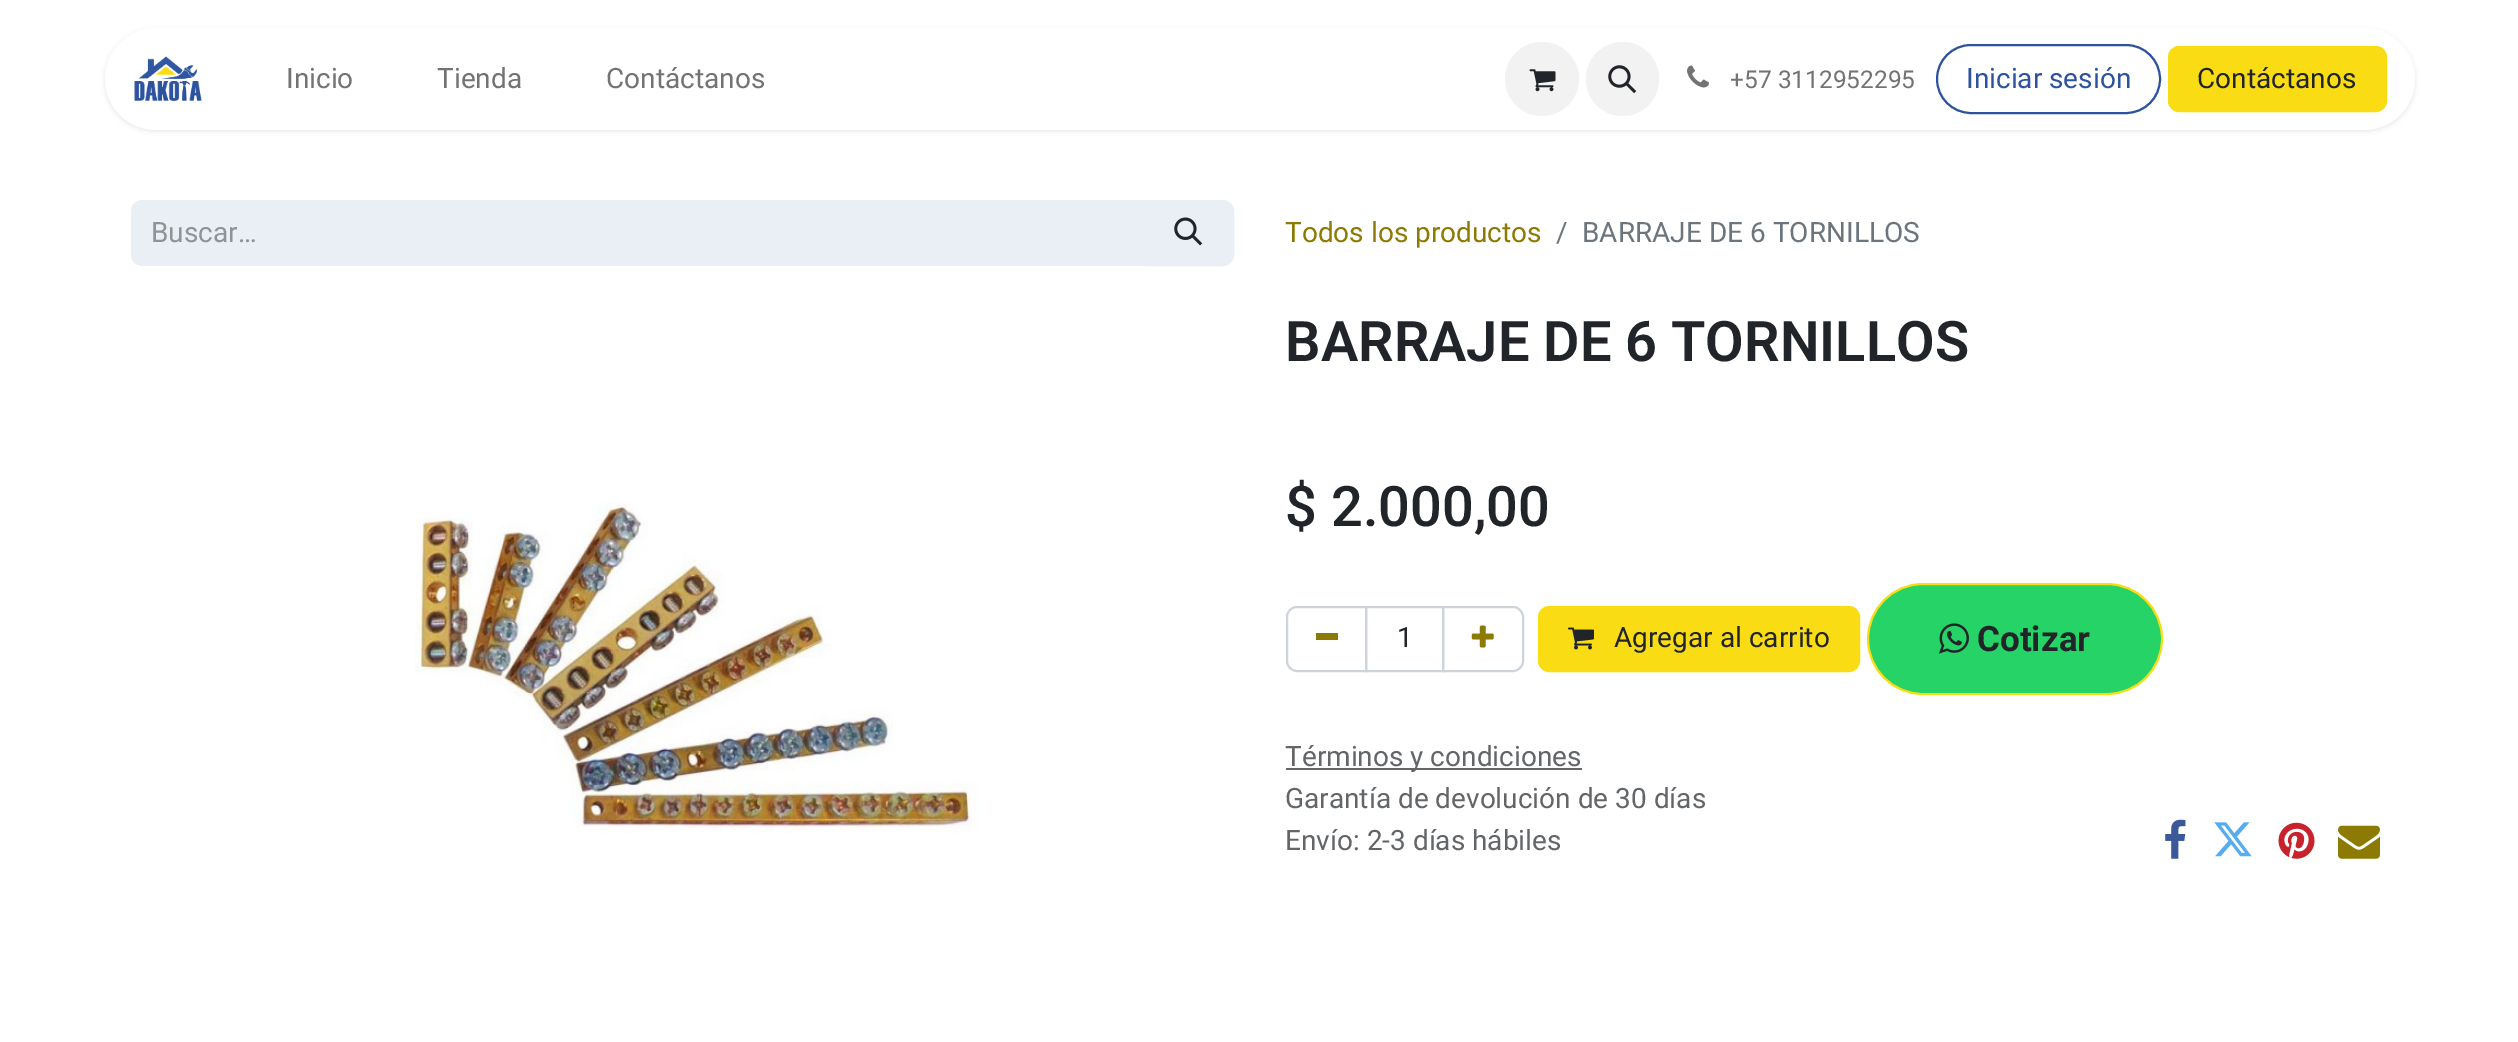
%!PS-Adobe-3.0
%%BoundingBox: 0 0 2518 1042
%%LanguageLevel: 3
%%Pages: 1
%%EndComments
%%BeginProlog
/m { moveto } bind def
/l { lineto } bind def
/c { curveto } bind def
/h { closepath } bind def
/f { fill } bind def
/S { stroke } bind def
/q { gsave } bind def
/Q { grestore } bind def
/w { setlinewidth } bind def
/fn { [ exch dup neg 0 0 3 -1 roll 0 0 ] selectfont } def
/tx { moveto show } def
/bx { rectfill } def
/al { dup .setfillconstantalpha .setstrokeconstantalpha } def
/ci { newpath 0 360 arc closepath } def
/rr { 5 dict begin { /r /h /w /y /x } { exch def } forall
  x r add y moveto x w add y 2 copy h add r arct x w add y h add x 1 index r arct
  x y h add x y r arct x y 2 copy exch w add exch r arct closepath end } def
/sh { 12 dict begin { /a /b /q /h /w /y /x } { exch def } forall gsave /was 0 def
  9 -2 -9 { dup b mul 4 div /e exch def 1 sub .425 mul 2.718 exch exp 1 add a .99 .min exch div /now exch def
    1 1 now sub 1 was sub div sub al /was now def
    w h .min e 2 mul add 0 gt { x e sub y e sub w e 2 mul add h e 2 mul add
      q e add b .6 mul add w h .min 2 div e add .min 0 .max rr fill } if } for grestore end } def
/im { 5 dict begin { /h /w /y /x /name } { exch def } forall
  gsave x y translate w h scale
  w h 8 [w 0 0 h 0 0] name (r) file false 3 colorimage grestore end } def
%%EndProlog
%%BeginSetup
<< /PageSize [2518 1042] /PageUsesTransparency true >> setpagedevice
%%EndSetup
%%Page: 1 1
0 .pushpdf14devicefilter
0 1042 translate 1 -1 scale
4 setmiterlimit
1 setgray
0 0 2518 1042 bx
0 setgray
105 30 2310 101 50.5 2.5 0.1 sh
1 setgray
105 28 2310 102 51 rr f
(image0.raw) 134 56 68 45 im
/Roboto-Regular 28 fn
0.451 setgray
(Inicio) 286 88 tx
(Tienda) 437 88 tx
(Contáctanos) 606 88 tx
0.949 setgray
1542 79 37 ci f
(image1.raw) 1529 69 27 23 im
1586 42 73 74 36.5 rr f
(image2.raw) 1608 65 29 29 im
(image3.raw) 1687 65 22 23 im
/Roboto-Regular 24.5 fn
0.451 setgray
(+57 3112952295) 1730 88 tx
0.176 0.325 0.624 setrgbcolor
2 w
1937 45 223 68 34 rr S
/Roboto-Regular 28 fn
(Iniciar sesión) 1966 88 tx
0.98 0.863 0.082 setrgbcolor
2169 47 217 64 10 rr q f Q
S
0.129 0.145 0.161 setrgbcolor
(Contáctanos) 2197 88 tx
0.918 0.933 0.961 setrgbcolor
142 200 m 1146 200 l 1146 266 l 142 266 l 136 266 131 261 131 255 c 131 211 l 131 205 136 200 142 200 c h f
0.565 0.573 0.58 setrgbcolor
(Buscar…) 151 242 tx
0.918 0.933 0.961 setrgbcolor
1146 201 m 1223 201 l 1228.5 201 1233 205.5 1233 211 c 1233 255 l 1233 260.5 1228.5 265 1223 265 c 1146 265 l h q f Q
S
(image4.raw) 1174 217 29 29 im
0.549 0.478 0.012 setrgbcolor
(Todos los productos) 1285 242 tx
0.424 0.459 0.49 setrgbcolor
(/) 1556 242 tx
(BARRAJE DE 6 TORNILLOS) 1582 242 tx
(image5.raw) 415 502 564 331 im
/Roboto-SemiBold 56 fn
0.129 0.145 0.161 setrgbcolor
(BARRAJE DE 6 TORNILLOS) 1285 361 tx
/Roboto-Medium 56 fn
($ 2.000,00) 1285 526 tx
0.808 0.831 0.855 setrgbcolor
1366 607 77 64 rectstroke
1297 607 m 1366 607 l 1366 671 l 1297 671 l 1291.5 671 1287 666.5 1287 661 c 1287 617 l 1287 611.5 1291.5 607 1297 607 c h S
0.549 0.478 0.012 setrgbcolor
1316 633 22 7 bx
/Roboto-Regular 28 fn
0.129 0.145 0.161 setrgbcolor
(1) 1397 647 tx
0.808 0.831 0.855 setrgbcolor
1443 607 m 1513 607 l 1518.5 607 1523 611.5 1523 617 c 1523 661 l 1523 666.5 1518.5 671 1513 671 c 1443 671 l h S
(image6.raw) 1471 625 23 23 im
0.98 0.863 0.082 setrgbcolor
1539 607 320 64 10 rr q f Q
S
(image7.raw) 1568 627 26 23 im
0.129 0.145 0.161 setrgbcolor
(Agregar al carrito) 1614 647 tx
0.145 0.827 0.4 setrgbcolor
1868 584 294 110 55 rr q f Q
0.98 0.863 0.082 setrgbcolor
S
(image8.raw) 1939 623 30 31 im
/Roboto-Bold 35 fn
0.129 0.145 0.161 setrgbcolor
(Cotizar) 1977 651 tx
0.392 0.4 0.412 setrgbcolor
1286 768 296 2 bx
/Roboto-Regular 28 fn
0.388 0.4 0.412 setrgbcolor
(Términos y condiciones) 1285 766 tx
(Garantía de devolución de 30 días) 1285 808 tx
(Envío: 2-3 días hábiles) 1285 850 tx
(image9.raw) 2165 819 21 40 im
(image10.raw) 2214 822 38 35 im
(image11.raw) 2278 822 37 37 im
(image12.raw) 2338 825 42 34 im
.poppdf14devicefilter showpage
%%EOF
